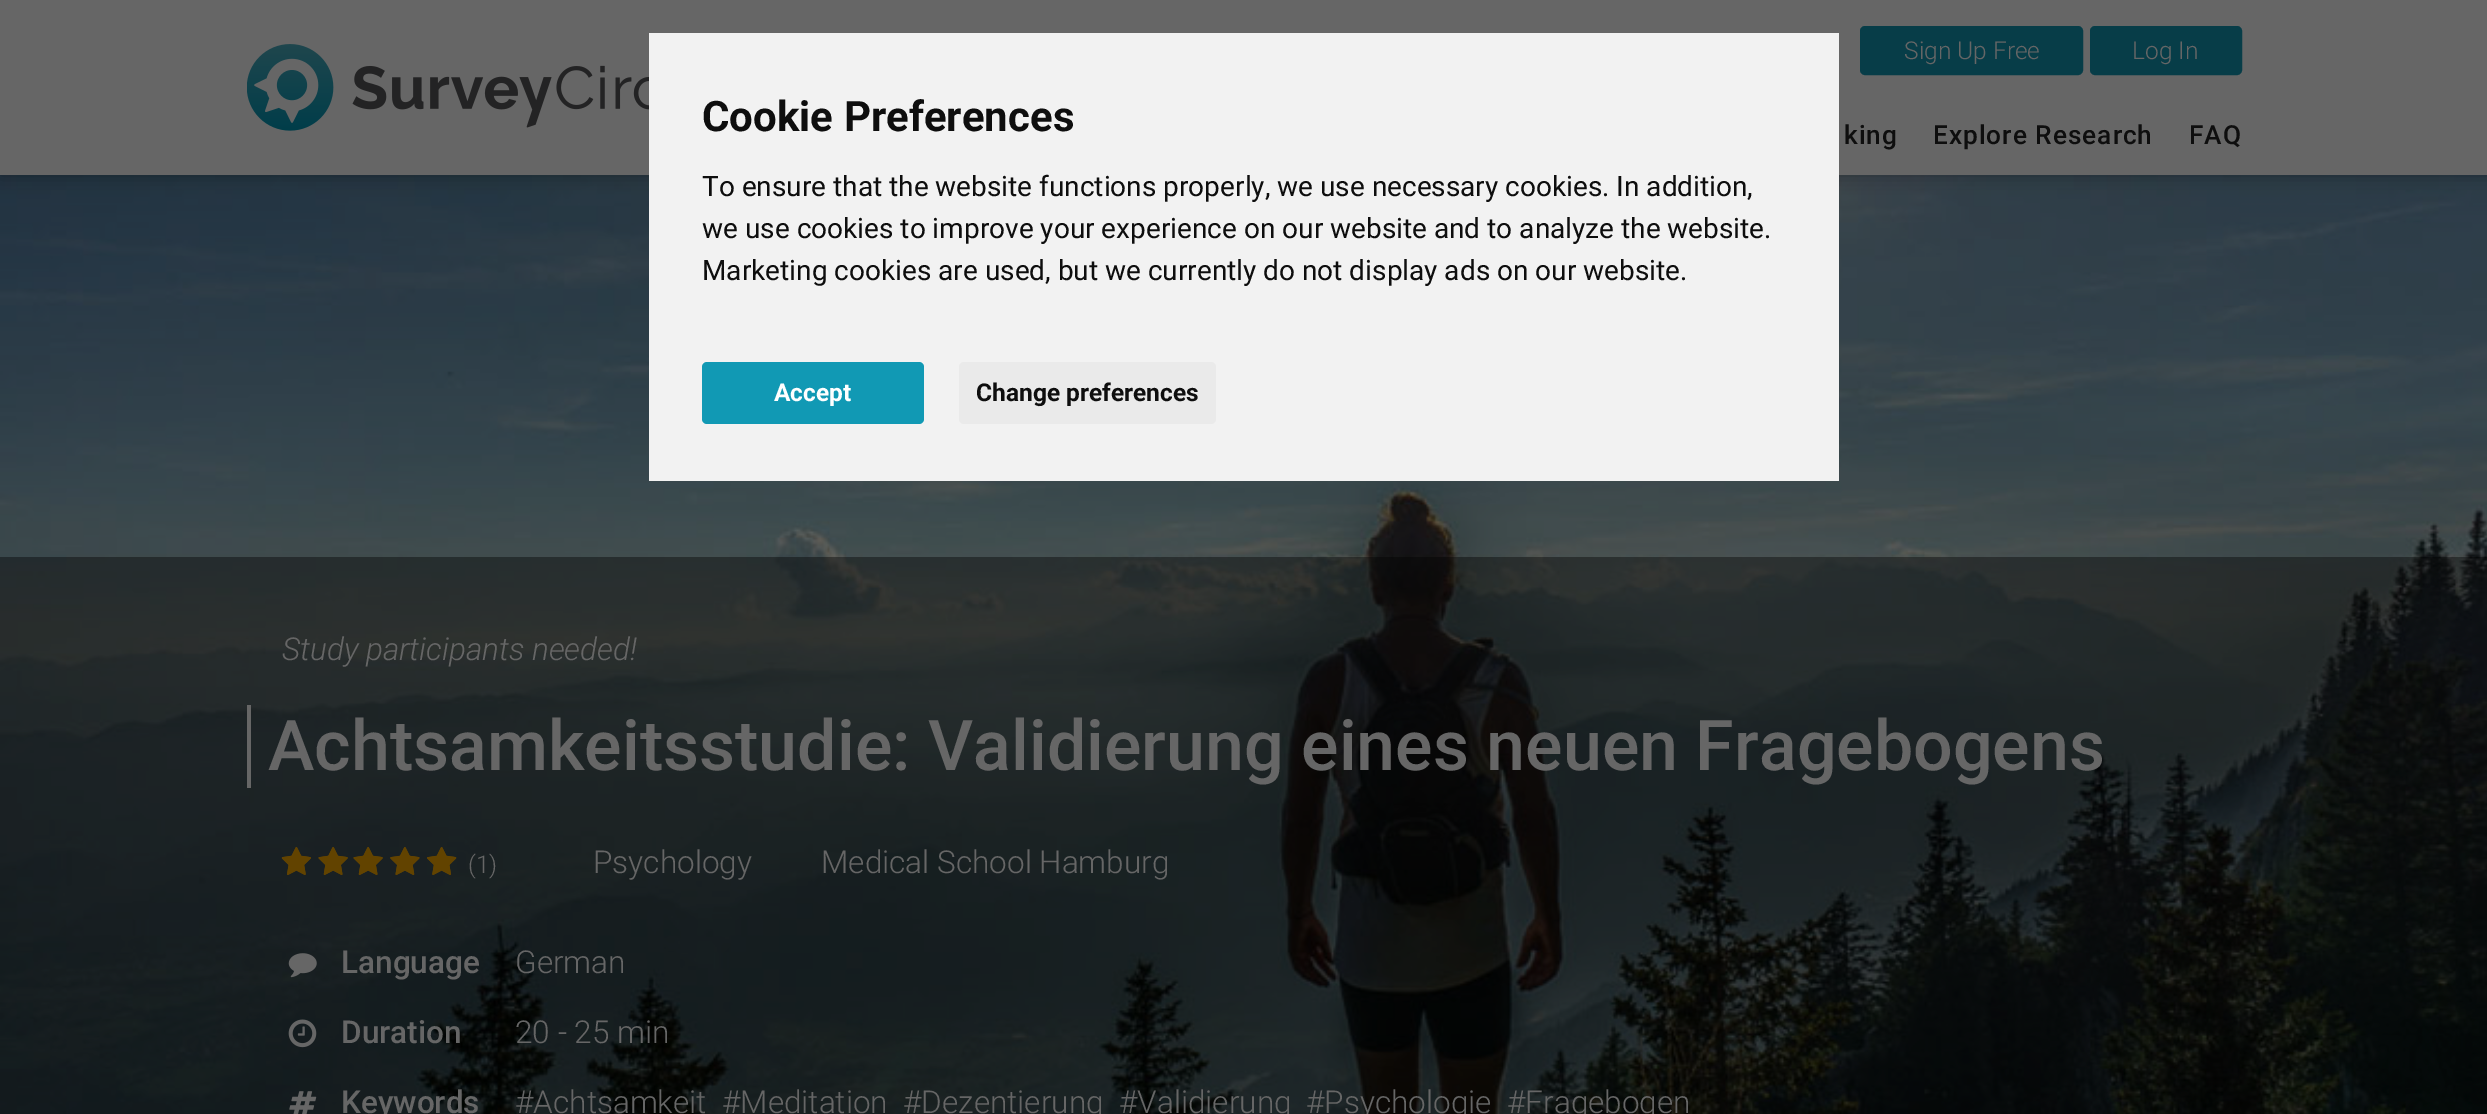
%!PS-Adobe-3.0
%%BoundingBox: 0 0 2487 1114
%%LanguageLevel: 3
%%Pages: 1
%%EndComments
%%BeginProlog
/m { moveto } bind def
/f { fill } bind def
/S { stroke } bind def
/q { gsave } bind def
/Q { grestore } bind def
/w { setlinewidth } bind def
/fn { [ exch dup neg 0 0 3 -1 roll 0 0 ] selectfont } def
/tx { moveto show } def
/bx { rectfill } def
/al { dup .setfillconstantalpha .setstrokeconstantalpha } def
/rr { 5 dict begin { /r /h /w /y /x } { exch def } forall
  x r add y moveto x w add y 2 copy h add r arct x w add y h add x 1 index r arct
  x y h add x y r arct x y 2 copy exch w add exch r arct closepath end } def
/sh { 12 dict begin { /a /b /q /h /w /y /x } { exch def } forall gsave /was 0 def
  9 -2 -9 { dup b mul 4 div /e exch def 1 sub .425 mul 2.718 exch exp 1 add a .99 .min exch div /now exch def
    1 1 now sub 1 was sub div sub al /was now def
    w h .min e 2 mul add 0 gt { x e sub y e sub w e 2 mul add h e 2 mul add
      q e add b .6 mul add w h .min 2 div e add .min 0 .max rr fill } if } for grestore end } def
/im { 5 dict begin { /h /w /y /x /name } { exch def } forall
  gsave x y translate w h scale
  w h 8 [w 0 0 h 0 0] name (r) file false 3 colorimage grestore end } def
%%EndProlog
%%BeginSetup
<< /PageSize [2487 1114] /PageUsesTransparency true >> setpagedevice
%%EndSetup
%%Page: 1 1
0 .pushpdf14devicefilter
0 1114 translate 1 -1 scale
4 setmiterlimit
1 setgray
0 0 2487 1114 bx
(image1.raw) 0 175 2487 939 im
0 setgray
0 0 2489 175 0 9 0.3 sh
0.4 setgray
0 0 2487 175 bx
0.949 setgray
649 33 1190 448 bx
/Roboto-Bold 42 fn
0.055 setgray
(Cookie Preferences) 702 131 tx
/Roboto-Regular 28 fn
(To ensure that the website functions properly, we use necessary cookies. In addition,) 702 196 tx
(we use cookies to improve your experience on our website and to analyze the website.) 702 238 tx
(Marketing cookies are used, but we currently do not display ads on our website.) 702 280 tx
0.067 0.6 0.706 setrgbcolor
702 362 222 62 5 rr f
/Roboto-Bold 24.5 fn
1 setgray
(Accept) 774 401 tx
0.918 setgray
959 362 257 62 5 rr f
0.055 setgray
(Change preferences) 976 401 tx
(image0.raw) 247 44 402 87 im
0.027 0.239 0.282 setrgbcolor
1861 27 221 47 4 rr q f Q
2 w
S
/Roboto-Light 24.5 fn
0.4 setgray
(Sign Up Free) 1904 59 tx
0.027 0.239 0.282 setrgbcolor
2091 27 150 47 4 rr q f Q
S
0.4 setgray
(Log In) 2132 59 tx
/Roboto-Medium 26.25 fn
0.055 setgray
1844 144 m 1 0 (king) ashow
1933 144 m 1 0 (Explore Research) ashow
2189 144 m 1 0 (FAQ) ashow
0.4 al
0 setgray
0 557 2487 557 bx
/Roboto-LightItalic 31.5 fn
1 al
0.4 setgray
(Study participants needed!) 282 660 tx
247 705 4 83 bx
/Roboto-Medium 70 fn
(Achtsamkeitsstudie: Validierung eines neuen Fragebogens) 268 770 tx
(image2.raw) 281 847 30 28 im
(image3.raw) 318 847 30 28 im
(image4.raw) 353 847 30 28 im
(image5.raw) 390 847 30 28 im
(image6.raw) 427 847 30 28 im
(image7.raw) 281 847 30 28 im
(image8.raw) 318 847 30 28 im
(image9.raw) 353 847 30 28 im
(image10.raw) 390 847 30 28 im
(image11.raw) 427 847 30 28 im
/Roboto-Light 24.5 fn
(\(1\)) 468 873 tx
/Roboto-Light 31.5 fn
(Psychology) 593 873 tx
(Medical School Hamburg) 821 873 tx
(image12.raw) 288 953 29 25 im
/Roboto-Medium 31.5 fn
(Language) 341 973 tx
/Roboto-Light 31.5 fn
(German) 515 973 tx
(image13.raw) 288 1019 29 29 im
/Roboto-Medium 31.5 fn
(Duration) 341 1043 tx
/Roboto-Light 31.5 fn
(20 - 25 min) 515 1043 tx
(image14.raw) 289 1091 28 23 im
/Roboto-Medium 31.5 fn
(Keywords) 341 1113 tx
/Roboto-Light 31.5 fn
(#Achtsamkeit) 515 1113 tx
(#Meditation) 722 1113 tx
(#Dezentierung) 903 1113 tx
(#Validierung) 1119 1113 tx
(#Psychologie) 1306 1113 tx
(#Fragebogen) 1507 1113 tx
.poppdf14devicefilter showpage
%%EOF
